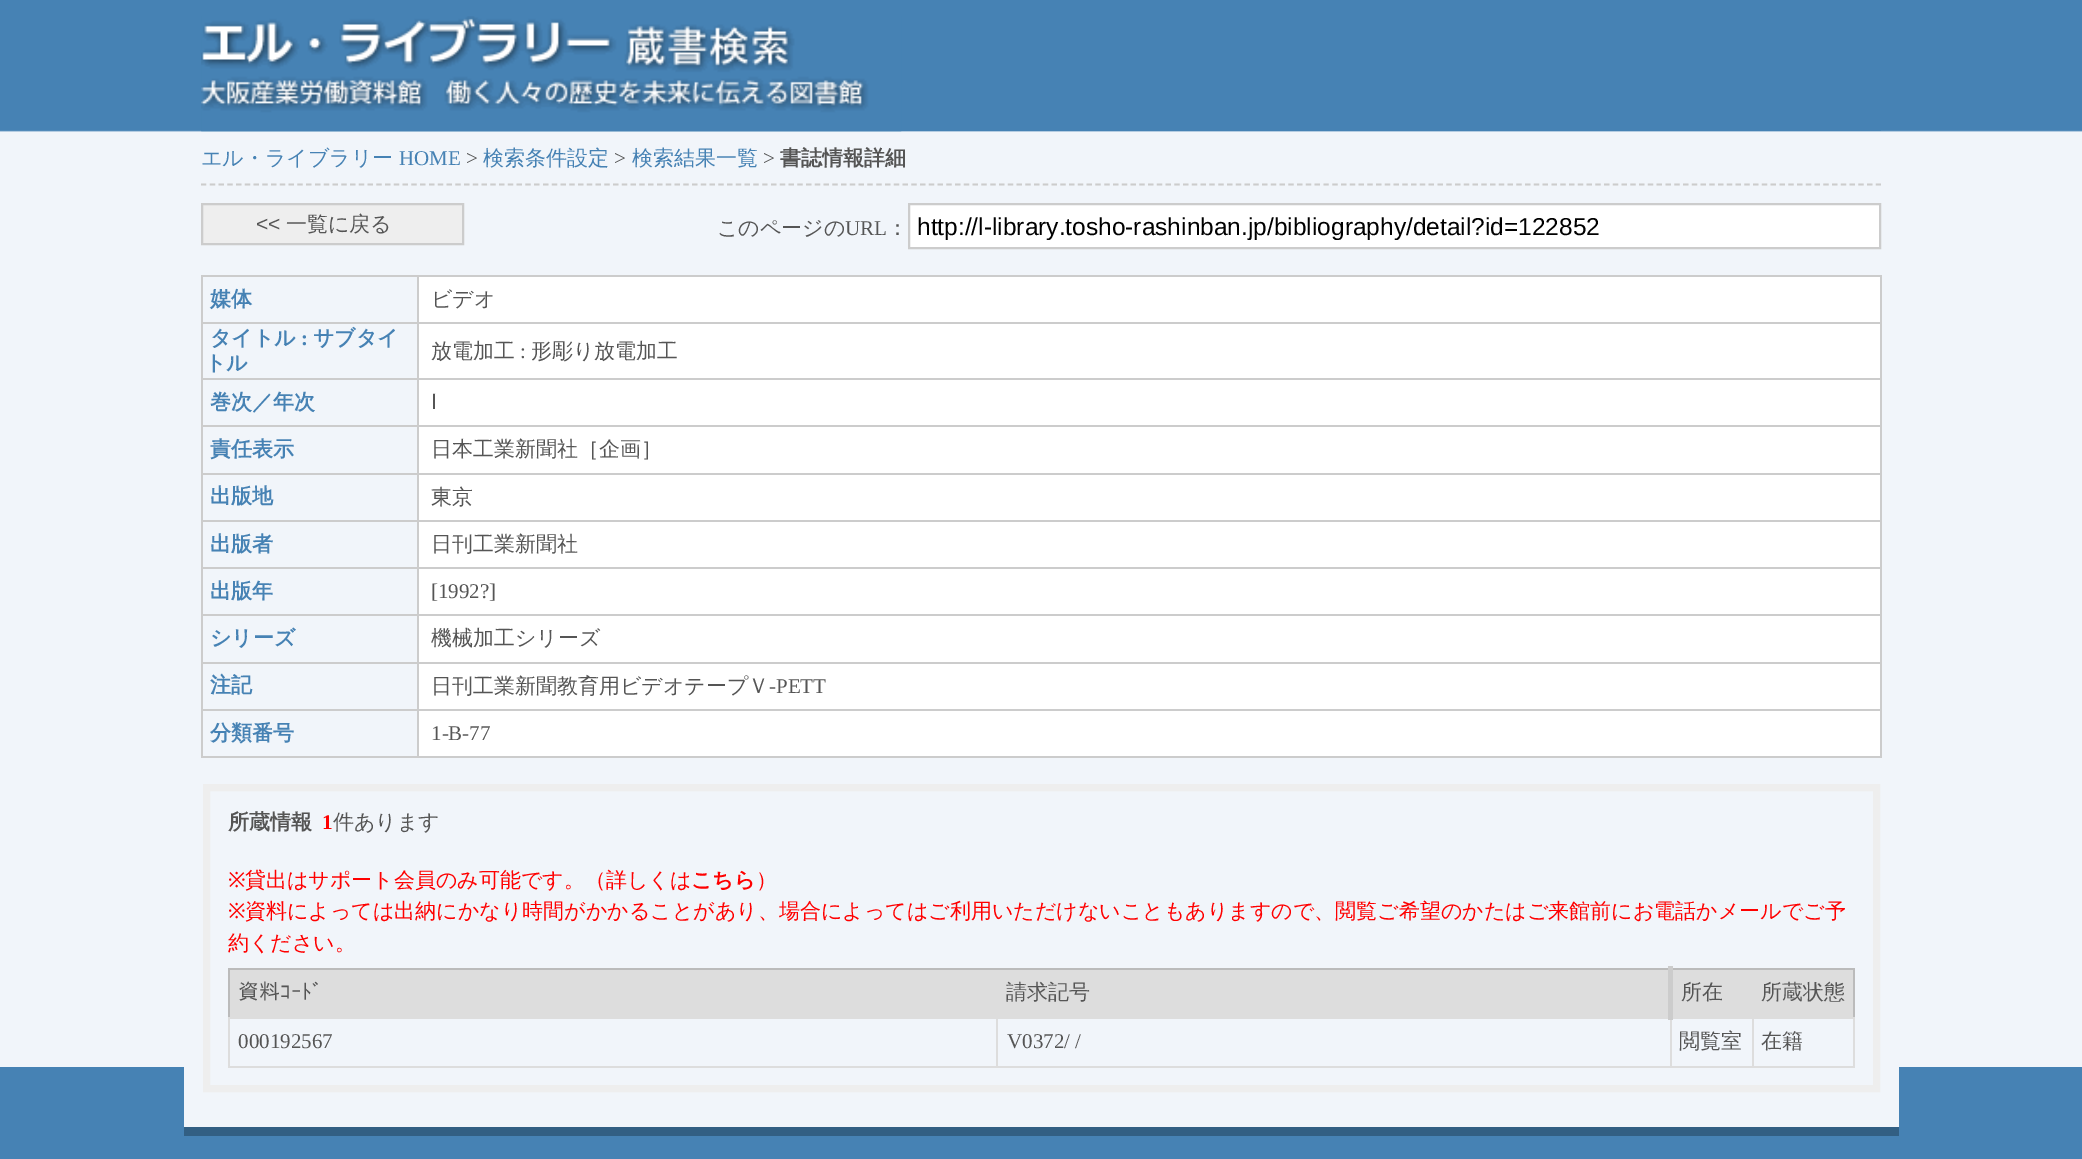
%!PS-Adobe-3.0
%%BoundingBox: 0 0 2082 1159
%%LanguageLevel: 3
%%Pages: 1
%%EndComments
%%BeginProlog
/m { moveto } bind def
/l { lineto } bind def
/h { closepath } bind def
/f { fill } bind def
/S { stroke } bind def
/q { gsave } bind def
/Q { grestore } bind def
/w { setlinewidth } bind def
/fn { [ exch dup neg 0 0 3 -1 roll 0 0 ] selectfont } def
/tx { moveto show } def
/bx { rectfill } def
/im { 5 dict begin { /h /w /y /x /name } { exch def } forall
  gsave x y translate w h scale
  w h 8 [w 0 0 h 0 0] name (r) file false 3 colorimage grestore end } def
%%EndProlog
%%BeginSetup
<< /PageSize [2082 1159] >> setpagedevice
%%EndSetup
%%Page: 1 1
0 1159 translate 1 -1 scale
4 setmiterlimit
0.945 0.961 0.98 setrgbcolor
0 0 2082 1159 bx
(image0.raw) 0 0 2082 132 im
0.275 0.51 0.706 setrgbcolor
201 130 1680 1 bx
(image1.raw) 201 16 701 116 im
0.8 setgray
1.8 w
[5.25 3.52] 0 setdash
201 184.5 m 1881 184.5 l S
/WenQuanYiZenHei-Medium 21 fn
0.275 0.51 0.706 setrgbcolor
(エル・ライブラリー) 201 165 tx
/LiberationSerif-Regular 21 fn
(HOME) 399 165 tx
0.333 setgray
(>) 466 165 tx
/WenQuanYiZenHei-Medium 21 fn
0.275 0.51 0.706 setrgbcolor
(検索条件設定) 483 165 tx
/LiberationSerif-Regular 21 fn
0.333 setgray
(>) 614 165 tx
/WenQuanYiZenHei-Medium 21 fn
0.275 0.51 0.706 setrgbcolor
(検索結果一覧) 632 165 tx
/LiberationSerif-Regular 21 fn
0.333 setgray
(>) 763 165 tx
/WenQuanYiZenHei-Bold 21 fn
(書誌情報詳細) 780 165 tx
0.933 setgray
202 204 m 463 204 l 463 244 l 202 244 l h q f Q
0.8 setgray
2 w
[] 0 setdash
S
/LiberationSans-Regular 21 fn
0.333 setgray
(<<) 256 231 tx
/WenQuanYiZenHei-Medium 21 fn
(一覧に戻る) 286 231 tx
(このページの) 717 235 tx
/LiberationSerif-Regular 21 fn
(URL) 845 235 tx
/WenQuanYiZenHei-Medium 21 fn
(：) 887 235 tx
1 setgray
909 204 m 1880 204 l 1880 248 l 909 248 l h q f Q
0.8 setgray
S
q
917 212 956 28 rectclip
/LiberationSans-Regular 24.5 fn
0 setgray
(http://l-library.tosho-rashinban.jp/bibliography/detail?id=122852) 917 235 tx
Q
0.275 0.51 0.706 setrgbcolor
0 1067 2082 92 bx
0.945 0.961 0.98 setrgbcolor
184 1067 1715 60 bx
0.196 0.373 0.514 setrgbcolor
184 1127 1715 9 bx
1 setgray
419 277 1461 479 bx
0.8 setgray
417 275 1464 2 bx
417 322 1464 2 bx
417 378 1464 2 bx
417 425 1464 2 bx
417 473 1464 2 bx
417 520 1464 2 bx
417 567 1464 2 bx
417 614 1464 2 bx
417 662 1464 2 bx
417 709 1464 2 bx
1880 709 2 49 bx
417 756 1464 2 bx
417 709 2 49 bx
201 709 217 2 bx
417 662 2 49 bx
201 662 217 2 bx
417 614 2 49 bx
201 614 217 2 bx
417 567 2 49 bx
201 567 217 2 bx
417 520 2 49 bx
201 520 217 2 bx
417 473 2 49 bx
201 473 217 2 bx
417 425 2 49 bx
201 425 217 2 bx
417 378 2 49 bx
201 378 217 2 bx
417 322 2 58 bx
201 322 217 2 bx
417 275 2 49 bx
201 275 217 2 bx
201 756 217 2 bx
201 709 2 49 bx
201 662 2 49 bx
201 614 2 49 bx
201 567 2 49 bx
201 520 2 49 bx
201 473 2 49 bx
201 425 2 49 bx
201 378 2 49 bx
201 322 2 58 bx
201 275 2 49 bx
/WenQuanYiZenHei-Bold 21 fn
0.275 0.51 0.706 setrgbcolor
(媒体) 210 306 tx
0.8 setgray
1880 662 2 49 bx
1880 614 2 49 bx
1880 567 2 49 bx
1880 520 2 49 bx
1880 473 2 49 bx
1880 425 2 49 bx
1880 378 2 49 bx
1880 322 2 58 bx
1880 275 2 49 bx
/WenQuanYiZenHei-Medium 21 fn
0.333 setgray
(ビデオ) 431 306 tx
/WenQuanYiZenHei-Bold 21 fn
0.275 0.51 0.706 setrgbcolor
(タイトル) 210 345 tx
/LiberationSerif-Bold 21 fn
(:) 301 345 tx
/WenQuanYiZenHei-Bold 21 fn
(サブタイ) 313 345 tx
(トル) 205 370 tx
/WenQuanYiZenHei-Medium 21 fn
0.333 setgray
(放電加工) 431 358 tx
/LiberationSerif-Regular 21 fn
(:) 520 358 tx
/WenQuanYiZenHei-Medium 21 fn
(形彫り放電加工) 531 358 tx
/WenQuanYiZenHei-Bold 21 fn
0.275 0.51 0.706 setrgbcolor
(巻次／年次) 210 409 tx
/DejaVuSans-Regular 21 fn
0.333 setgray
(Ⅰ) 431 409 tx
/WenQuanYiZenHei-Bold 21 fn
0.275 0.51 0.706 setrgbcolor
(責任表示) 210 456 tx
/WenQuanYiZenHei-Medium 21 fn
0.333 setgray
(日本工業新聞社［企画］) 431 456 tx
/WenQuanYiZenHei-Bold 21 fn
0.275 0.51 0.706 setrgbcolor
(出版地) 210 503 tx
/WenQuanYiZenHei-Medium 21 fn
0.333 setgray
(東京) 431 504 tx
/WenQuanYiZenHei-Bold 21 fn
0.275 0.51 0.706 setrgbcolor
(出版者) 210 551 tx
/WenQuanYiZenHei-Medium 21 fn
0.333 setgray
(日刊工業新聞社) 431 551 tx
/WenQuanYiZenHei-Bold 21 fn
0.275 0.51 0.706 setrgbcolor
(出版年) 210 598 tx
/LiberationSerif-Regular 21 fn
0.333 setgray
([1992?]) 431 598 tx
/WenQuanYiZenHei-Bold 21 fn
0.275 0.51 0.706 setrgbcolor
(シリーズ) 210 645 tx
/WenQuanYiZenHei-Medium 21 fn
0.333 setgray
(機械加工シリーズ) 431 645 tx
/WenQuanYiZenHei-Bold 21 fn
0.275 0.51 0.706 setrgbcolor
(注記) 210 692 tx
/WenQuanYiZenHei-Medium 21 fn
0.333 setgray
(日刊工業新聞教育用ビデオテープＶ) 431 693 tx
/LiberationSerif-Regular 21 fn
(-PETT) 769 693 tx
/WenQuanYiZenHei-Bold 21 fn
0.275 0.51 0.706 setrgbcolor
(分類番号) 210 740 tx
/LiberationSerif-Regular 21 fn
0.333 setgray
(1-B-77) 431 740 tx
0.933 setgray
7 w
206.5 787.5 1670 301 rectstroke
/WenQuanYiZenHei-Bold 21 fn
0.333 setgray
(所蔵情報) 228 829 tx
/LiberationSerif-Bold 21 fn
1 0 0 setrgbcolor
(1) 322 829 tx
/WenQuanYiZenHei-Medium 21 fn
0.333 setgray
(件あります) 333 829 tx
/NotoSans-Regular 21 fn
1 0 0 setrgbcolor
(※) 228 887 tx
/WenQuanYiZenHei-Medium 21 fn
(貸出はサポート会員のみ可能です。（詳しくは) 245 887 tx
/WenQuanYiZenHei-Bold 21 fn
(こちら) 691 887 tx
/WenQuanYiZenHei-Medium 21 fn
(）) 756 887 tx
/NotoSans-Regular 21 fn
(※) 228 918 tx
/WenQuanYiZenHei-Medium 21 fn
(資料によっては出納にかなり時間がかかることがあり、場合によってはご利用いただけないこともありますので、閲覧ご希望のかたはご来館前にお電話かメールでご予) 245 918 tx
(約ください。) 228 950 tx
0.733 setgray
228 968 1627 2 bx
1853 968 2 49 bx
228 968 2 49 bx
0.867 setgray
230 970 1438 47 bx
/IPAGothic-Regular 21 fn
0.333 setgray
(資料ｺｰﾄﾞ) 238 999 tx
0.867 setgray
1752 1017 103 2 bx
1853 1017 2 51 bx
1752 1066 103 2 bx
1752 1017 2 51 bx
1670 1017 84 2 bx
1670 1066 84 2 bx
1670 1017 2 51 bx
996 1017 675 2 bx
0.8 setgray
1668 966 5 54 bx
/WenQuanYiZenHei-Medium 21 fn
0.333 setgray
(請求記号) 1006 999 tx
0.867 setgray
1673 970 180 47 bx
0.333 setgray
(所在) 1681 999 tx
(所蔵状態) 1761 999 tx
0.867 setgray
996 1066 675 2 bx
996 1017 2 51 bx
228 1017 770 2 bx
228 1066 770 2 bx
228 1017 2 51 bx
/LiberationSerif-Regular 21 fn
0.333 setgray
(000192567) 238 1048 tx
(V0372/ /) 1007 1048 tx
/WenQuanYiZenHei-Medium 21 fn
(閲覧室) 1679 1048 tx
(在籍) 1761 1048 tx
showpage
%%EOF
